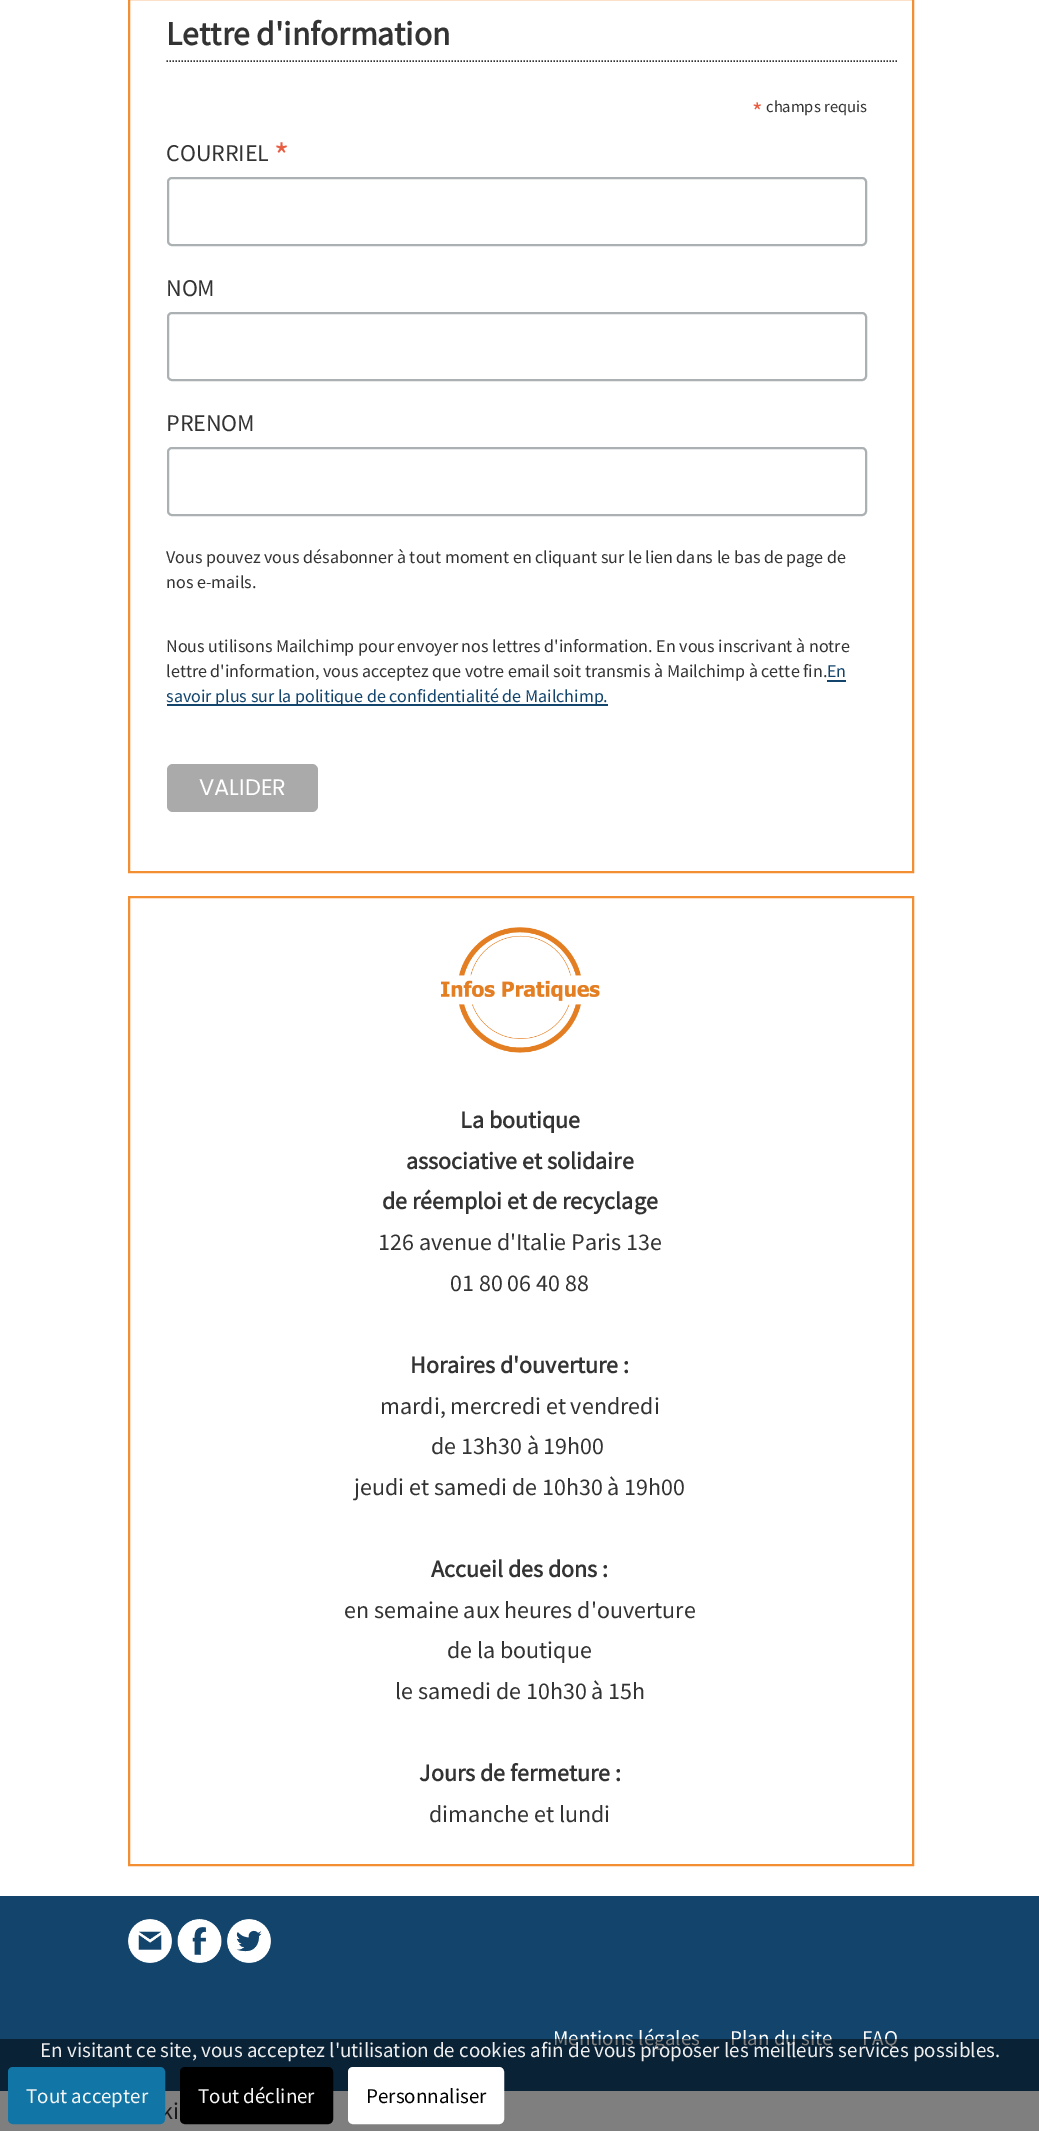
%!PS-Adobe-3.0
%%BoundingBox: 0 0 1039 2131
%%LanguageLevel: 3
%%Pages: 1
%%EndComments
%%BeginProlog
/m { moveto } bind def
/l { lineto } bind def
/f { fill } bind def
/S { stroke } bind def
/q { gsave } bind def
/Q { grestore } bind def
/w { setlinewidth } bind def
/fn { [ exch dup neg 0 0 3 -1 roll 0 0 ] selectfont } def
/tx { moveto show } def
/bx { rectfill } def
/al { dup .setfillconstantalpha .setstrokeconstantalpha } def
/rr { 5 dict begin { /r /h /w /y /x } { exch def } forall
  x r add y moveto x w add y 2 copy h add r arct x w add y h add x 1 index r arct
  x y h add x y r arct x y 2 copy exch w add exch r arct closepath end } def
/im { 5 dict begin { /h /w /y /x /name } { exch def } forall
  gsave x y translate w h scale
  w h 8 [w 0 0 h 0 0] name (r) file false 3 colorimage grestore end } def
%%EndProlog
%%BeginSetup
<< /PageSize [1039 2131] /PageUsesTransparency true >> setpagedevice
%%EndSetup
%%Page: 1 1
0 .pushpdf14devicefilter
0 2131 translate 1 -1 scale
4 setmiterlimit
1 setgray
0 0 1039 2131 bx
0.957 0.557 0.196 setrgbcolor
2 w
129 -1 784 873 rectstroke
0.2 setgray
1.5 w
[1.5 1.5] 0 setdash
166.5 61 m 897 61 l S
/SourceSansPro-Bold 33.5 fn
(Lettre d'information) 166 45 tx
/SourceSansPro-Regular 25 fn
0.91 0.361 0.255 setrgbcolor
(*) 752 120 tx
/SourceSansPro-Regular 16.5 fn
0.2 setgray
(champs requis) 766 112 tx
/SourceSansPro-Regular 24 fn
(COURRIEL) 166 161 tx
/SourceSansPro-Regular 36 fn
0.91 0.361 0.255 setrgbcolor
(*) 274 168 tx
0.671 0.69 0.698 setrgbcolor
2 w
[] 0 setdash
168 178 698 67 4 rr S
/SourceSansPro-Regular 24 fn
0.2 setgray
(NOM) 166 296 tx
0.671 0.69 0.698 setrgbcolor
168 313 698 67 4 rr S
0.2 setgray
(PRENOM) 166 431 tx
0.671 0.69 0.698 setrgbcolor
168 448 698 67 4 rr S
/SourceSansPro-Regular 18 fn
0.2 setgray
(Vous pouvez vous désabonner à tout moment en cliquant sur le lien dans le bas de page de) 166 563 tx
(nos e-mails.) 166 588 tx
(Nous utilisons Mailchimp pour envoyer nos lettres d'information. En vous inscrivant à notre) 166 652 tx
(lettre d'information, vous acceptez que votre email soit transmis à Mailchimp à cette fin.) 166 677 tx
0.071 0.267 0.424 setrgbcolor
(En) 827 677 tx
827 680 19 2 bx
167 704 441 2 bx
(savoir plus sur la politique de confidentialité de Mailchimp.) 166 702 tx
0.667 setgray
167 764 151 48 6 rr f
/Poppins-Regular 22.5 fn
1 setgray
(VALIDER) 199 795 tx
0.957 0.557 0.196 setrgbcolor
129 897 784 968 rectstroke
(image0.raw) 441 927 159 126 im
/SourceSansPro-Bold 24 fn
0.2 setgray
(La boutique) 460 1128 tx
(associative et solidaire) 406 1169 tx
(de réemploi et de recyclage) 382 1209 tx
/SourceSansPro-Regular 24 fn
(126 avenue d'Italie Paris 13e) 378 1250 tx
(01 80 06 40 88) 450 1291 tx
/SourceSansPro-Bold 24 fn
(Horaires d'ouverture :) 410 1373 tx
/SourceSansPro-Regular 24 fn
(mardi, mercredi et vendredi) 380 1414 tx
(de 13h30 à 19h00) 431 1454 tx
(jeudi et samedi de 10h30 à 19h00) 354 1495 tx
/SourceSansPro-Bold 24 fn
(Accueil des dons :) 431 1577 tx
/SourceSansPro-Regular 24 fn
(en semaine aux heures d'ouverture) 344 1618 tx
(de la boutique) 447 1658 tx
(le samedi de 10h30 à 15h) 395 1699 tx
/SourceSansPro-Bold 24 fn
(Jours de fermeture :) 419 1781 tx
/SourceSansPro-Regular 24 fn
(dimanche et lundi) 429 1822 tx
0.071 0.267 0.424 setrgbcolor
0 1896 1039 195 bx
(image1.raw) 128 1919 44 44 im
(image2.raw) 177 1919 45 44 im
(image3.raw) 227 1919 44 44 im
/SourceSansPro-Regular 21 fn
1 setgray
(Mentions légales) 553 2045 tx
(Plan du site) 730 2045 tx
(FAQ) 862 2045 tx
/SourceSansPro-Regular 24 fn
0.2 setgray
(ki) 161 2119 tx
0.5 al
0 setgray
0 2039 1039 92 bx
/SourceSansPro-Regular 21 fn
1 al
0.933 setgray
(En visitant ce site, vous acceptez l'utilisation de cookies afin de vous proposer les meilleurs services possibles.) 40 2057 tx
0.067 0.463 0.651 setrgbcolor
9.5 2068.5 154 54 3.5 rr q f Q
3 w
S
0.961 setgray
(Tout accepter) 26 2103 tx
0 setgray
181.5 2068.5 150 54 3.5 rr q f Q
S
0.961 setgray
(Tout décliner) 198 2103 tx
1 setgray
349.5 2068.5 153 54 3.5 rr q f Q
S
0 setgray
(Personnaliser) 366 2103 tx
.poppdf14devicefilter showpage
%%EOF
